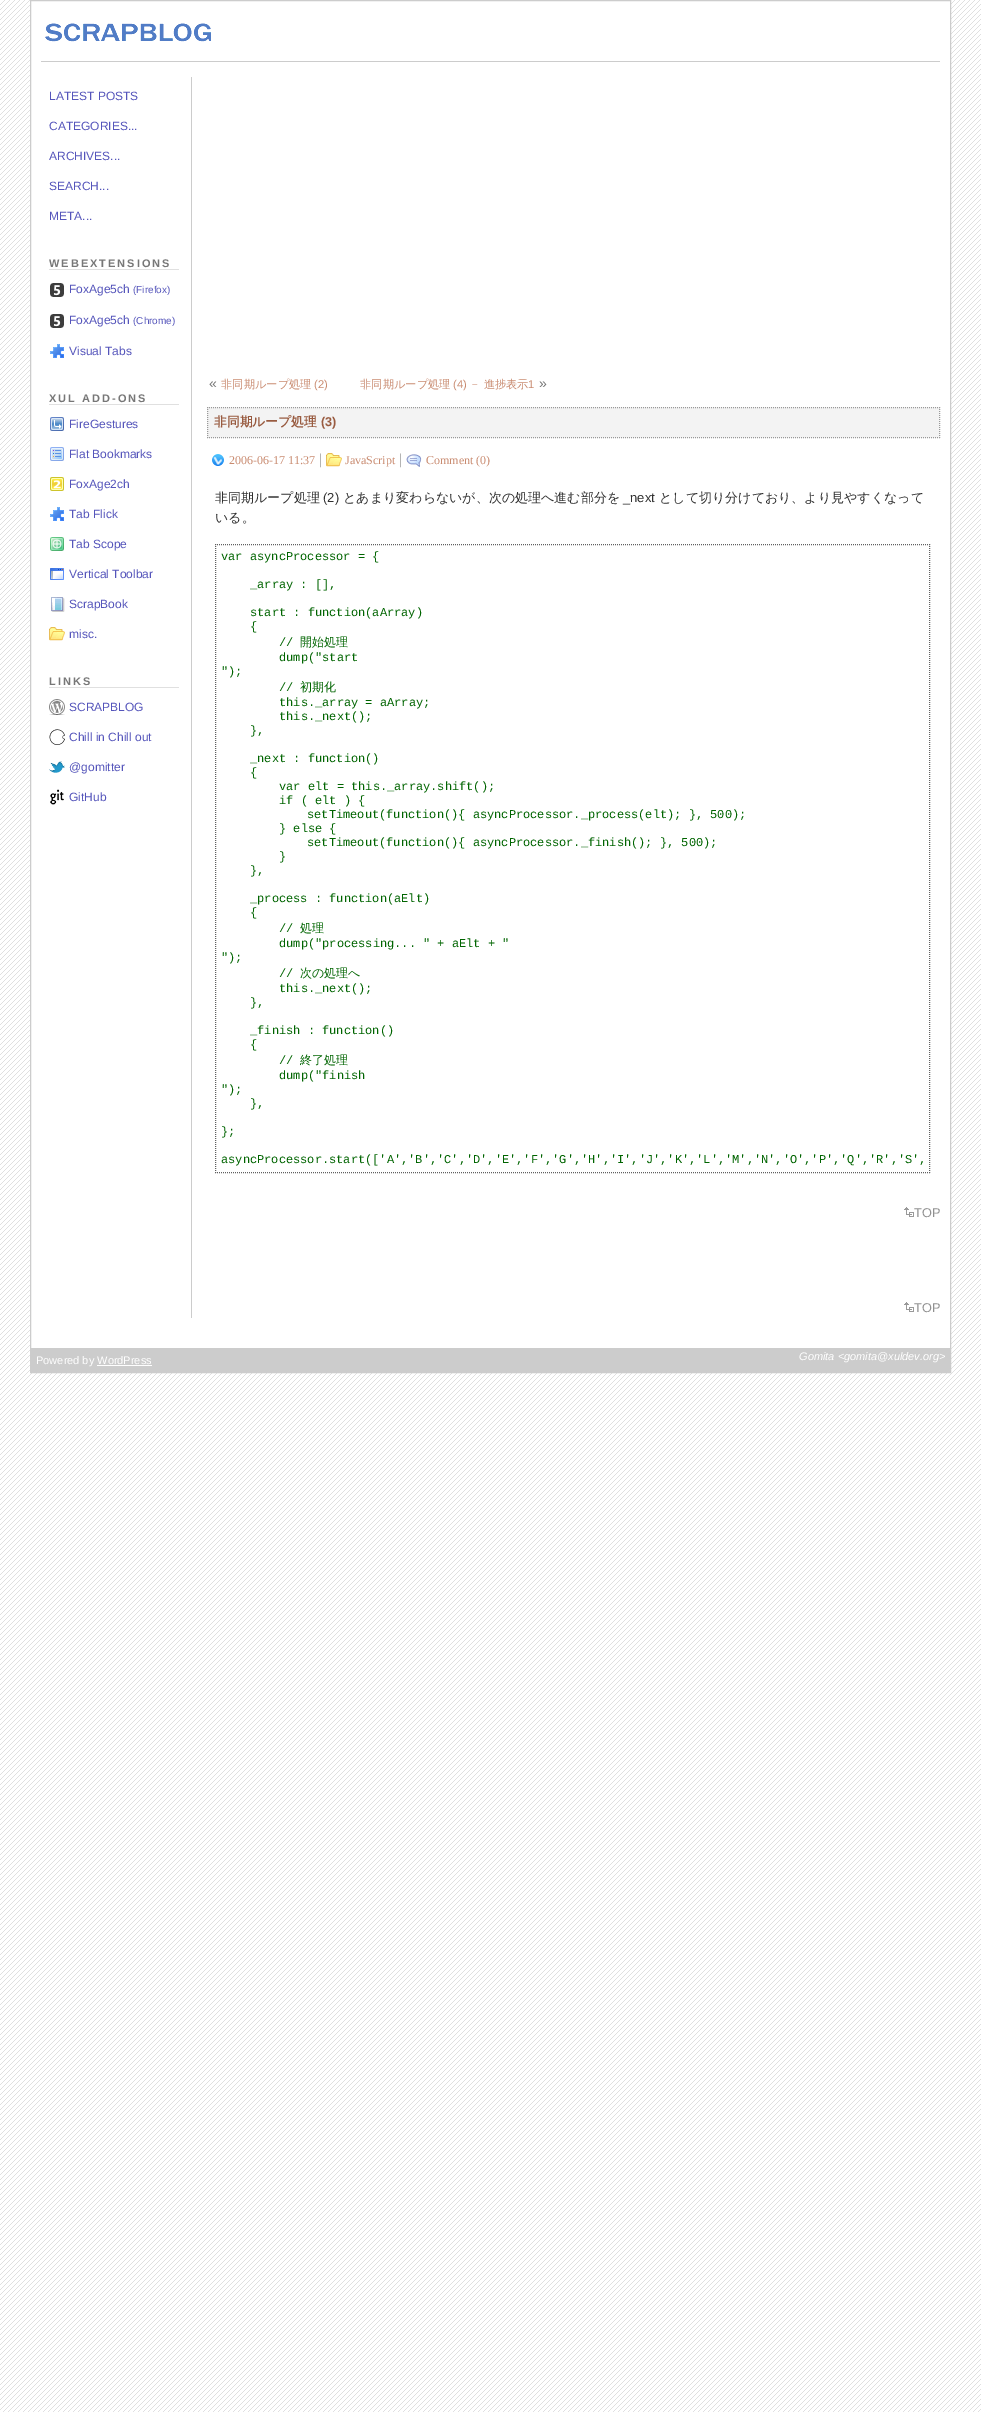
%!PS-Adobe-3.0
%%BoundingBox: 0 0 981 2412
%%LanguageLevel: 3
%%Pages: 1
%%EndComments
%%BeginProlog
/m { moveto } bind def
/l { lineto } bind def
/S { stroke } bind def
/fn { [ exch dup neg 0 0 3 -1 roll 0 0 ] selectfont } def
/tx { moveto show } def
/bx { rectfill } def
/im { 5 dict begin { /h /w /y /x /name } { exch def } forall
  gsave x y translate w h scale
  w h 8 [w 0 0 h 0 0] name (r) file false 3 colorimage grestore end } def
%%EndProlog
%%BeginSetup
<< /PageSize [981 2412] >> setpagedevice
%%EndSetup
%%Page: 1 1
0 2412 translate 1 -1 scale
4 setmiterlimit
1 setgray
0 0 981 2412 bx
(image0.raw) 0 0 981 2412 im
31 1 919 1347 bx
0.8 setgray
30.5 0.5 920 1372 rectstroke
41 61 899 1 bx
(image1.raw) 45 23 166 19 im
/LiberationSans-Regular 12 fn
0.333 0.333 0.733 setrgbcolor
(LATEST POSTS) 49 100 tx
(CATEGORIES...) 49 130 tx
(ARCHIVES...) 49 160 tx
(SEARCH...) 49 190 tx
(META...) 49 220 tx
0.878 setgray
49 269 130 1 bx
/LiberationSans-Bold 11 fn
0.467 setgray
49 267 m 2 0 (WEBEXTENSIONS) ashow
(image2.raw) 50 283 14 14 im
/LiberationSans-Regular 12 fn
0.333 0.333 0.733 setrgbcolor
(FoxAge5ch) 69 293 tx
/LiberationSans-Regular 10 fn
(\(Firefox\)) 133 293 tx
(image2.raw) 50 314 14 14 im
/LiberationSans-Regular 12 fn
(FoxAge5ch) 69 324 tx
/LiberationSans-Regular 10 fn
(\(Chrome\)) 133 324 tx
(image3.raw) 50 344 14 14 im
/LiberationSans-Regular 12 fn
(Visual Tabs) 69 355 tx
0.878 setgray
49 404 130 1 bx
/LiberationSans-Bold 11 fn
0.467 setgray
49 402 m 2 0 (XUL ADD-ONS) ashow
(image4.raw) 50 417 14 14 im
/LiberationSans-Regular 12 fn
0.333 0.333 0.733 setrgbcolor
(FireGestures) 69 428 tx
(image5.raw) 50 447 14 14 im
(Flat Bookmarks) 69 458 tx
(image6.raw) 50 477 14 14 im
(FoxAge2ch) 69 488 tx
(image3.raw) 50 507 14 14 im
(Tab Flick) 69 518 tx
(image7.raw) 50 537 14 14 im
(Tab Scope) 69 548 tx
(image8.raw) 50 568 14 12 im
(Vertical Toolbar) 69 578 tx
(image9.raw) 51 597 14 15 im
(ScrapBook) 69 608 tx
(image10.raw) 49 627 16 14 im
(misc.) 69 638 tx
0.878 setgray
49 687 130 1 bx
/LiberationSans-Bold 11 fn
0.467 setgray
49 685 m 2 0 (LINKS) ashow
(image11.raw) 49 699 16 16 im
/LiberationSans-Regular 12 fn
0.333 0.333 0.733 setrgbcolor
(SCRAPBLOG) 69 711 tx
(image12.raw) 49 729 16 16 im
(Chill in Chill out) 69 741 tx
(image13.raw) 49 761 16 12 im
(@gomitter) 69 771 tx
(image14.raw) 50 789 14 16 im
(GitHub) 69 801 tx
0.8 setgray
191 77 1 1241 bx
/LiberationSans-Regular 14 fn
0.467 setgray
(«) 209 388 tx
/WenQuanYiZenHei-Medium 11.25 fn
0.788 0.545 0.439 setrgbcolor
(非同期ループ処理) 221 388 tx
/LiberationSans-Regular 11.25 fn
(\(2\)) 314 388 tx
/WenQuanYiZenHei-Medium 11.25 fn
(非同期ループ処理) 360 388 tx
/LiberationSans-Regular 11.25 fn
(\(4\)) 453 388 tx
/WenQuanYiZenHei-Medium 11.25 fn
(－ 進捗表示) 469 388 tx
/LiberationSans-Regular 11.25 fn
(1) 528 388 tx
/LiberationSans-Regular 14 fn
0.467 setgray
(») 539 388 tx
0.953 setgray
207 407 733 31 bx
0.6 setgray
[1 1] 0 setdash
207 407.5 m 940 407.5 l S
939.5 407 m 939.5 438 l S
207 437.5 m 940 437.5 l S
207.5 407 m 207.5 438 l S
/WenQuanYiZenHei-Bold 12.75 fn
0.6 0.357 0.251 setrgbcolor
(非同期ループ処理) 214 426 tx
/LiberationSans-Bold 12.75 fn
(\(3\)) 321 426 tx
(image15.raw) 212 454 12 12 im
/LiberationSerif-Regular 12 fn
0.788 0.545 0.439 setrgbcolor
(2006-06-17 11:37) 229 464 tx
/LiberationSerif-Regular 15 fn
0.6 setgray
(|) 319 464 tx
(image10.raw) 326 453 16 14 im
/LiberationSerif-Regular 12 fn
0.788 0.545 0.439 setrgbcolor
(JavaScript) 345 464 tx
/LiberationSerif-Regular 15 fn
0.6 setgray
(|) 399 464 tx
(image16.raw) 406 454 16 13 im
/LiberationSerif-Regular 12 fn
0.788 0.545 0.439 setrgbcolor
(Comment \(0\)) 426 464 tx
/WenQuanYiZenHei-Medium 13 fn
0.188 setgray
(非同期ループ処理) 215 502 tx
/LiberationSans-Regular 13 fn
(\(2\)) 323 502 tx
/WenQuanYiZenHei-Medium 13 fn
(とあまり変わらないが、次の処理へ進む部分を) 343 502 tx
/LiberationSans-Regular 13 fn
(_next) 623 502 tx
/WenQuanYiZenHei-Medium 13 fn
(として切り分けており、より見やすくなって) 659 502 tx
(いる。) 215 522 tx
0.376 setgray
215 544.5 m 930 544.5 l S
929.5 544 m 929.5 1173 l S
215 1172.5 m 930 1172.5 l S
215.5 544 m 215.5 1173 l S
/LiberationMono-Regular 12 fn
0 0.392 0 setrgbcolor
(var asyncProcessor = {) 221 560 tx
(_array : [],) 250 588 tx
(start : function\(aArray\)) 250 616 tx
({) 250 630 tx
(//) 279 646 tx
/WenQuanYiZenHei-Medium 12 fn
(開始処理) 300 646 tx
/LiberationMono-Regular 12 fn
(dump\("start) 279 661 tx
("\);) 221 675 tx
(//) 279 691 tx
/WenQuanYiZenHei-Medium 12 fn
(初期化) 300 691 tx
/LiberationMono-Regular 12 fn
(this._array = aArray;) 279 706 tx
(this._next\(\);) 279 720 tx
(},) 250 734 tx
(_next : function\(\)) 250 762 tx
({) 250 776 tx
(var elt = this._array.shift\(\);) 279 790 tx
(if \( elt \) {) 279 804 tx
(setTimeout\(function\(\){ asyncProcessor._process\(elt\); }, 500\);) 307 818 tx
(} else {) 279 832 tx
(setTimeout\(function\(\){ asyncProcessor._finish\(\); }, 500\);) 307 846 tx
(}) 279 860 tx
(},) 250 874 tx
(_process : function\(aElt\)) 250 902 tx
({) 250 916 tx
(//) 279 932 tx
/WenQuanYiZenHei-Medium 12 fn
(処理) 300 932 tx
/LiberationMono-Regular 12 fn
(dump\("processing... " + aElt + ") 279 947 tx
("\);) 221 961 tx
(//) 279 977 tx
/WenQuanYiZenHei-Medium 12 fn
(次の処理へ) 300 977 tx
/LiberationMono-Regular 12 fn
(this._next\(\);) 279 992 tx
(},) 250 1006 tx
(_finish : function\(\)) 250 1034 tx
({) 250 1048 tx
(//) 279 1064 tx
/WenQuanYiZenHei-Medium 12 fn
(終了処理) 300 1064 tx
/LiberationMono-Regular 12 fn
(dump\("finish) 279 1079 tx
("\);) 221 1093 tx
(},) 250 1107 tx
(};) 221 1135 tx
(asyncProcessor.start\(['A','B','C','D','E','F','G','H','I','J','K','L','M','N','O','P','Q','R','S',) 221 1163 tx
(image17.raw) 904 1207 10 10 im
/LiberationSans-Regular 12.75 fn
0.565 setgray
(TOP) 914 1217 tx
(image17.raw) 904 1302 10 10 im
(TOP) 914 1312 tx
0.8 setgray
31 1348 919 24 bx
/LiberationSans-Regular 11 fn
1 setgray
(Powered by WordPress) 36 1364 tx
97 1365 55 1 bx
/LiberationSans-Italic 11 fn
(Gomita <gomita@xuldev.org>) 799 1360 tx
showpage
%%EOF
